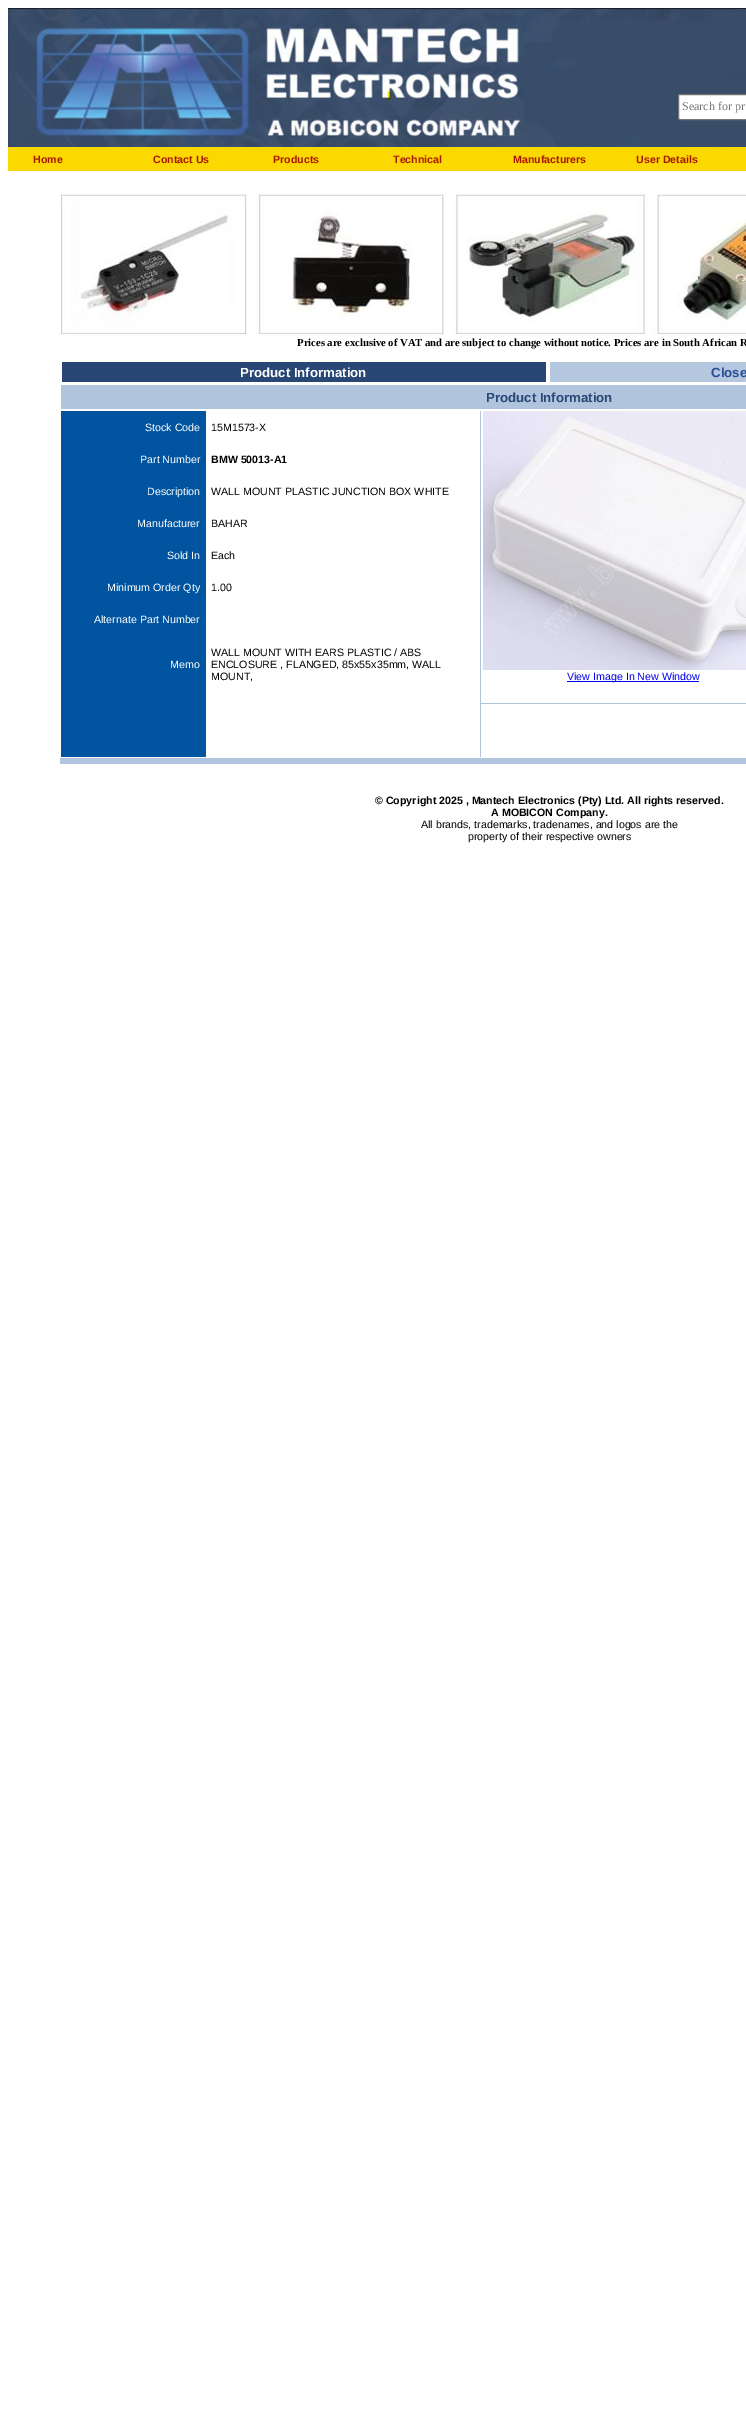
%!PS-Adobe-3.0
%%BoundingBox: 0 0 746 2433
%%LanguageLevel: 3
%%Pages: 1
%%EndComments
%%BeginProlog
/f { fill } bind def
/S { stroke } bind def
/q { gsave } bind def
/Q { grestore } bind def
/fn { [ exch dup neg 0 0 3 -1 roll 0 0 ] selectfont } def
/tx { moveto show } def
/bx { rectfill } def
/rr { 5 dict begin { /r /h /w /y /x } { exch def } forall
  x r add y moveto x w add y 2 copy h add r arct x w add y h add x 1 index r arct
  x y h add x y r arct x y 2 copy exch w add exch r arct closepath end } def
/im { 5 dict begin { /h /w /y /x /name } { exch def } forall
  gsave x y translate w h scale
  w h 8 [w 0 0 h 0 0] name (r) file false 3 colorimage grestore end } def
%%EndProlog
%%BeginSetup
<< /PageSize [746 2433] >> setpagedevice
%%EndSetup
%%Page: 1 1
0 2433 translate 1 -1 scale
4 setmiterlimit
1 setgray
0 0 746 2433 bx
(image0.raw) 8 8 738 139 im
678.5 94.5 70 25 1.5 rr q f Q
0.463 setgray
S
/LiberationSerif-Regular 12 fn
0.459 setgray
(Search for pr) 682 110 tx
0.984 0.847 0 setrgbcolor
8 147 738 24 bx
/LiberationSans-Bold 10.65 fn
0.667 0.094 0 setrgbcolor
(Home) 33 163 tx
(Contact Us) 153 163 tx
(Products) 273 163 tx
(Technical) 393 163 tx
(Manufacturers) 513 163 tx
(User Details) 636 163 tx
(image1.raw) 60 187 686 150 im
/LiberationSerif-Bold 10.65 fn
0 setgray
(Prices are exclusive of VAT and are subject to change without notice. Prices are in South African R) 297 346 tx
0.71 0.78 0.871 setrgbcolor
550 362 196 20 bx
0.157 0.278 0.459 setrgbcolor
62 362 484 20 bx
/LiberationSans-Bold 13.25 fn
1 setgray
(Product Information) 240 377 tx
0.157 0.306 0.596 setrgbcolor
(Close) 711 377 tx
0.69 0.769 0.871 setrgbcolor
61 385 685 24 bx
0.157 0.278 0.459 setrgbcolor
(Product Information) 486 402 tx
0.69 0.769 0.871 setrgbcolor
480 411 1 346 bx
0 0.329 0.627 setrgbcolor
61 411 145 346 bx
/LiberationSans-Regular 10.65 fn
1 setgray
(Stock Code) 145 431 tx
0 setgray
(15M1573-X) 211 431 tx
1 setgray
(Part Number) 140 463 tx
/LiberationSans-Bold 10.65 fn
0 setgray
(BMW 50013-A1) 211 463 tx
/LiberationSans-Regular 10.65 fn
1 setgray
(Description) 147 495 tx
0 setgray
(WALL MOUNT PLASTIC JUNCTION BOX WHITE) 211 495 tx
1 setgray
(Manufacturer) 137 527 tx
0 setgray
(BAHAR) 211 527 tx
1 setgray
(Sold In) 167 559 tx
0 setgray
(Each) 211 559 tx
1 setgray
(Minimum Order Qty) 107 591 tx
0 setgray
(1.00) 211 591 tx
1 setgray
(Alternate Part Number) 94 623 tx
(Memo) 170 668 tx
0 setgray
(WALL MOUNT WITH EARS PLASTIC / ABS) 211 656 tx
(ENCLOSURE , FLANGED, 85x55x35mm, WALL) 211 668 tx
(MOUNT,) 211 680 tx
(image2.raw) 483 411 263 259 im
0 0 0.933 setrgbcolor
567 681 132 1 bx
(View Image In New Window) 567 680 tx
0.69 0.769 0.871 setrgbcolor
481 703 265 1 bx
60 758 686 6 bx
/LiberationSans-Bold 10.65 fn
0 setgray
(© Copyright 2025 , Mantech Electronics \(Pty\) Ltd. All rights reserved.) 375 804 tx
(A MOBICON Company.) 491 816 tx
/LiberationSans-Regular 10.65 fn
(All brands, trademarks, tradenames, and logos are the) 421 828 tx
(property of their respective owners) 468 840 tx
showpage
%%EOF
